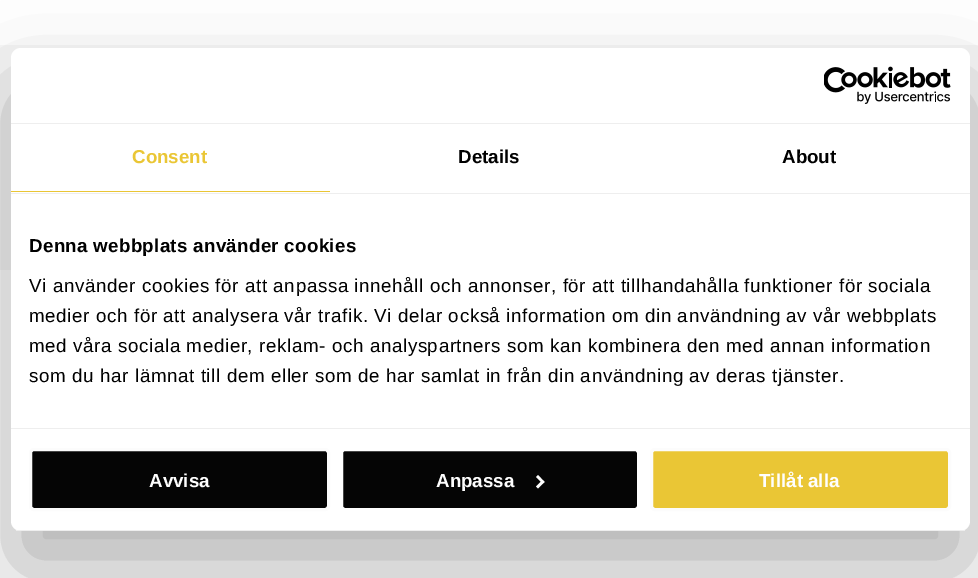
%!PS-Adobe-3.0
%%BoundingBox: 0 0 978 578
%%LanguageLevel: 3
%%Pages: 1
%%EndComments
%%BeginProlog
/m { moveto } bind def
/l { lineto } bind def
/h { closepath } bind def
/f { fill } bind def
/S { stroke } bind def
/q { gsave } bind def
/Q { grestore } bind def
/w { setlinewidth } bind def
/fn { [ exch dup neg 0 0 3 -1 roll 0 0 ] selectfont } def
/tx { moveto show } def
/bx { rectfill } def
/al { dup .setfillconstantalpha .setstrokeconstantalpha } def
/rr { 5 dict begin { /r /h /w /y /x } { exch def } forall
  x r add y moveto x w add y 2 copy h add r arct x w add y h add x 1 index r arct
  x y h add x y r arct x y 2 copy exch w add exch r arct closepath end } def
/sh { 12 dict begin { /a /b /q /h /w /y /x } { exch def } forall gsave /was 0 def
  9 -2 -9 { dup b mul 4 div /e exch def 1 sub .425 mul 2.718 exch exp 1 add a .99 .min exch div /now exch def
    1 1 now sub 1 was sub div sub al /was now def
    w h .min e 2 mul add 0 gt { x e sub y e sub w e 2 mul add h e 2 mul add
      q e add b .6 mul add w h .min 2 div e add .min 0 .max rr fill } if } for grestore end } def
/im { 5 dict begin { /h /w /y /x /name } { exch def } forall
  gsave x y translate w h scale
  w h 8 [w 0 0 h 0 0] name (r) file false 3 colorimage grestore end } def
%%EndProlog
%%BeginSetup
<< /PageSize [978 578] /PageUsesTransparency true >> setpagedevice
%%EndSetup
%%Page: 1 1
0 .pushpdf14devicefilter
0 578 translate 1 -1 scale
4 setmiterlimit
1 setgray
0 0 978 578 bx
0.969 setgray
0 45 978 225 bx
0 setgray
11 88 959 483 10 42.5 0.3 sh
1 setgray
11 48 959 483 10 rr f
0.933 setgray
11 123 959 1 bx
(image0.raw) 824 66 127 38 im
11 193 959 1 bx
0.918 0.776 0.208 setrgbcolor
11 191 319 1 bx
/LiberationSans-Bold 18.75 fn
(Consent) 132 163 tx
0 setgray
(Details) 458 163 tx
(About) 782 163 tx
0.933 setgray
11 428 959 1 bx
0 setgray
29 252 m 0.3 0 (Denna webbplats använder cookies) ashow
/LiberationSans-Regular 18.75 fn
29 292 m 0.62 0 (Vi använder cookies för att anpassa innehåll och annonser, för att tillhandahålla funktioner för sociala) ashow
29 322 m 0.62 0 (medier och för att analysera vår trafik. Vi delar också information om din användning av vår webbplats) ashow
29 352 m 0.62 0 (med våra sociala medier, reklam- och analyspartners som kan kombinera den med annan information) ashow
29 382 m 0.62 0 (som du har lämnat till dem eller som de har samlat in från din användning av deras tjänster.) ashow
q
11 48 959 483 10 rr clip newpath
0.933 setgray
11 530 959 1 bx
Q
0.02 setgray
30.5 449.5 298 60 3.5 rr q f Q
0.988 setgray
3 w
S
/LiberationSans-Bold 18.75 fn
0.996 setgray
(Avvisa) 149 487 tx
0.02 setgray
341.5 449.5 297 60 3.5 rr q f Q
1 setgray
S
0.996 setgray
(Anpassa) 436 487 tx
538 475 m 544.5 482 l 542.5 483.5 l 536 477 l h f
542.5 480 m 544.5 482 l 538 488.5 l 536 486.5 l h f
0.918 0.776 0.208 setrgbcolor
651.5 449.5 298 60 3.5 rr q f Q
0.988 setgray
S
0.996 setgray
(Tillåt alla) 759 487 tx
.poppdf14devicefilter showpage
%%EOF
